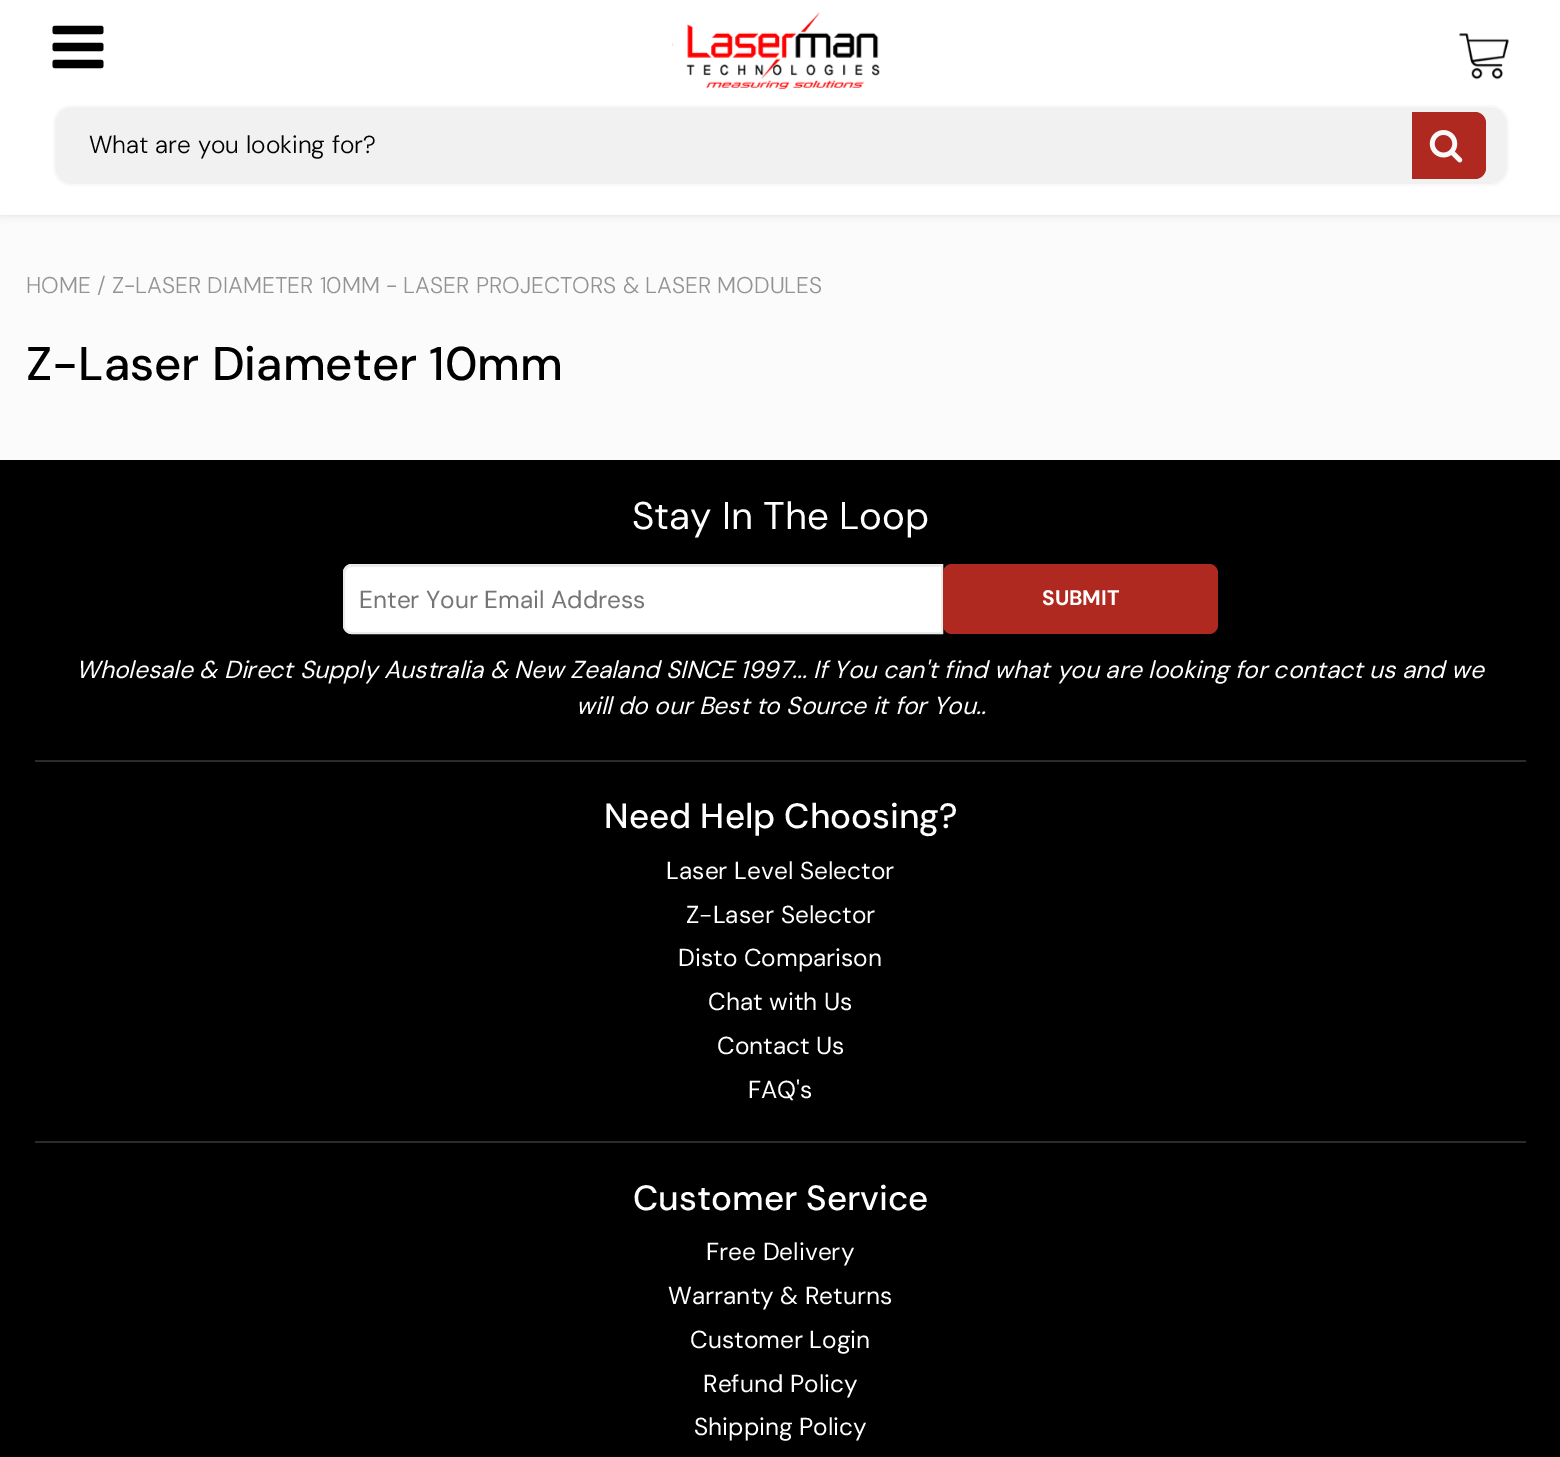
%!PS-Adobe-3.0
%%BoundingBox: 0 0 1560 1457
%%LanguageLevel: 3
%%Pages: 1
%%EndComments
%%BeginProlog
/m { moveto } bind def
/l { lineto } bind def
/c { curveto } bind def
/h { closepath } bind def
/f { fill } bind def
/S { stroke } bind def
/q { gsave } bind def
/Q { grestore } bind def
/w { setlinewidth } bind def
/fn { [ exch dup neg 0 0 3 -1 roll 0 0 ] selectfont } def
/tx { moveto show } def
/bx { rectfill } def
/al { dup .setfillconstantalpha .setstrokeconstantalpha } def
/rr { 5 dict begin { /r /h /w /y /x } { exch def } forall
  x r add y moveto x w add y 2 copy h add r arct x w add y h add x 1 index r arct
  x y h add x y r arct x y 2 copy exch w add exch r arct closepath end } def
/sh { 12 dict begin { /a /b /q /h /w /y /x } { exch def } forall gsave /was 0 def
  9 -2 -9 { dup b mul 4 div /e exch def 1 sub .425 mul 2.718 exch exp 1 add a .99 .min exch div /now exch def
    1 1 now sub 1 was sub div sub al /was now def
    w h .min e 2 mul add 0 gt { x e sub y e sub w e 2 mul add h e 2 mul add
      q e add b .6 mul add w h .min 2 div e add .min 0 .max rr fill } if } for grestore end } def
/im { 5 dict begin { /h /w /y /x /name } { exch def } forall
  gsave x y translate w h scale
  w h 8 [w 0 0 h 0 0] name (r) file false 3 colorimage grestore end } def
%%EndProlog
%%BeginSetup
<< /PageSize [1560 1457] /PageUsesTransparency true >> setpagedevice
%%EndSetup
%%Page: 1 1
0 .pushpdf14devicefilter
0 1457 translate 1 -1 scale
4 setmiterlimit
0.984 setgray
0 0 1560 1457 bx
0.867 setgray
0 0 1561 215 0 4.5 1 sh
1 setgray
0 0 1560 215 bx
(image0.raw) 52 25 52 44 im
(image1.raw) 672 12 208 77 im
(image2.raw) 1459 33 50 47 im
0.945 setgray
54 106 1454 79 17 rr q f Q
0.976 setgray
2 w
S
/DMSans-Light 24.5 fn
0 setgray
(What are you looking for?) 89 153 tx
0.69 0.161 0.125 setrgbcolor
1412 112 m 1475 112 l 1481 112 1486 117 1486 123 c 1486 168 l 1486 174 1481 179 1475 179 c 1412 179 l h f
(image3.raw) 1429 130 34 33 im
/DMSans-Light 22.75 fn
0.576 setgray
(HOME) 26 293 tx
(/ Z-LASER DIAMETER 10MM - LASER PROJECTORS & LASER MODULES) 97 293 tx
/DMSans-Medium 47.25 fn
0 setgray
(Z-Laser Diameter 10mm) 26 380 tx
0 460 1560 997 bx
0.169 setgray
35 760 1491 2 bx
/DMSans-Regular 38.5 fn
1 setgray
(Stay In The Loop) 632 529 tx
352 564 m 943 564 l 943 634 l 352 634 l 347 634 343 630 343 625 c 343 573 l 343 568 347 564 352 564 c h f
0.925 setgray
352 567 m 942 567 l 942 565 l 352 565 l 348 565 345 568 345 572 c 345 574 l 345 570 348 567 352 567 c h f
0.922 setgray
352 565 m 942 565 l 942 633 l 352 633 l 347.5 633 344 629.5 344 625 c 344 573 l 344 568.5 347.5 565 352 565 c h S
/DMSans-Regular 24.5 fn
0.459 setgray
(Enter Your Email Address) 359 608 tx
0.69 0.161 0.125 setrgbcolor
943 564 275 70 9 rr f
/DMSans-Bold 21 fn
1 setgray
(SUBMIT) 1042 605 tx
/DMSans-Italic 24.5 fn
(Wholesale & Direct Supply Australia & New Zealand SINCE 1997... If You can't find what you are looking for contact us and we) 76 678 tx
(will do our Best to Source it for You..) 576 714 tx
0.169 setgray
35 1141 1491 2 bx
/DMSans-Medium 35 fn
1 setgray
(Need Help Choosing?) 604 828 tx
/DMSans-Regular 24.5 fn
(Laser Level Selector) 666 879 tx
(Z-Laser Selector) 686 923 tx
(Disto Comparison) 678 966 tx
(Chat with Us) 708 1010 tx
(Contact Us) 717 1054 tx
(FAQ's) 748 1098 tx
/DMSans-Medium 35 fn
(Customer Service) 633 1210 tx
/DMSans-Regular 24.5 fn
(Free Delivery) 706 1260 tx
(Warranty & Returns) 668 1304 tx
(Customer Login) 690 1348 tx
(Refund Policy) 703 1392 tx
(Shipping Policy) 694 1435 tx
.poppdf14devicefilter showpage
%%EOF
